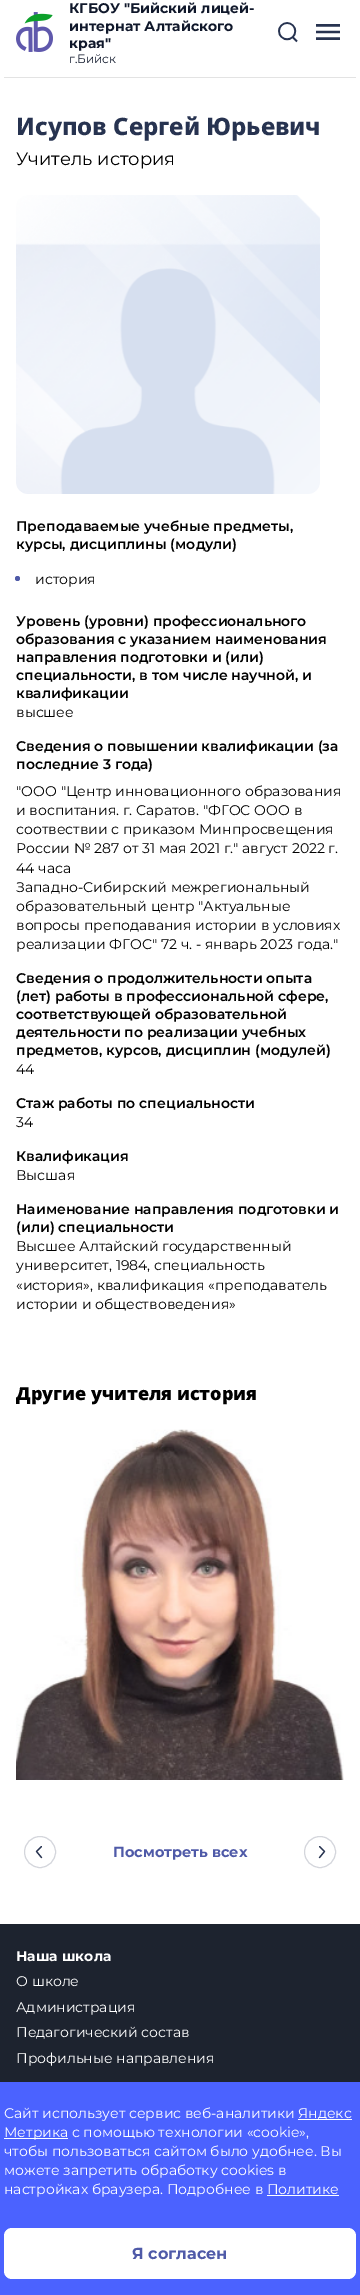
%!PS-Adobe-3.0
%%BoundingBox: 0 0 360 2295
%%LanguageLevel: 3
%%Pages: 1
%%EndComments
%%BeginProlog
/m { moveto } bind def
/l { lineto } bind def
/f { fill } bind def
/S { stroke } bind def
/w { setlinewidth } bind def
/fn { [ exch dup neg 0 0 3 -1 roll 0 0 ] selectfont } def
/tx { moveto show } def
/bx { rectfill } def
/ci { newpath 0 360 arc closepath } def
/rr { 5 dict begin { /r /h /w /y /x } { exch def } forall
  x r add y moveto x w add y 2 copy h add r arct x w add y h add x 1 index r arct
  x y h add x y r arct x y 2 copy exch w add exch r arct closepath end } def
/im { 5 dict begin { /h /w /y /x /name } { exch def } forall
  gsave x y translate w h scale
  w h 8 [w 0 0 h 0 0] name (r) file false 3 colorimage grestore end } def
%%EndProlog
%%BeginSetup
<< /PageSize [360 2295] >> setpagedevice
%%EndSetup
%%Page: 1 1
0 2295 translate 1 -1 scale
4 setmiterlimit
1 setgray
0 0 360 2295 bx
(image0.raw) 16 12 37 40 im
/Montserrat-Bold 14 fn
0.063 0.094 0.169 setrgbcolor
(КГБОУ "Бийский лицей-) 69 13 tx
(интернат Алтайского) 69 31 tx
(края") 69 48 tx
/Montserrat-Regular 12 fn
(г.Бийск) 69 63 tx
(image1.raw) 278 22 20 21 im
(image2.raw) 316 24 24 16 im
0.89 setgray
4 77 352 1 bx
/NotoSans-ExtraBold 24 fn
0.153 0.2 0.314 setrgbcolor
(Исупов Сергей Юрьевич) 16 135 tx
/Montserrat-Regular 18 fn
0 setgray
(Учитель история) 16 165 tx
(image3.raw) 16 195 304 299 im
/Montserrat-SemiBold 14 fn
(Преподаваемые учебные предметы,) 16 531 tx
(курсы, дисциплины \(модули\)) 16 549 tx
0.31 0.353 0.659 setrgbcolor
17.5 578.5 2.5 ci f
/Montserrat-Regular 14 fn
0 setgray
(история) 35 584 tx
/Montserrat-SemiBold 14 fn
(Уровень \(уровни\) профессионального) 16 626 tx
(образования с указанием наименования) 16 644 tx
(направления подготовки и \(или\)) 16 662 tx
(специальности, в том числе научной, и) 16 680 tx
(квалификации) 16 698 tx
/Montserrat-Regular 14 fn
(высшее) 16 717 tx
/Montserrat-SemiBold 14 fn
(Сведения о повышении квалификации \(за) 16 751 tx
(последние 3 года\)) 16 769 tx
/Montserrat-Regular 14 fn
("ООО "Центр инновационного образования) 16 796 tx
(и воспитания. г. Саратов. "ФГОС ООО в) 16 815 tx
(соотвествии с приказом Минпросвещения) 16 834 tx
(России № 287 от 31 мая 2021 г." август 2022 г.) 16 853 tx
(44 часа) 16 873 tx
(Западно-Сибирский межрегиональный) 16 892 tx
(образовательный центр "Актуальные) 16 911 tx
(вопросы преподавания истории в условиях) 16 930 tx
(реализации ФГОС" 72 ч. - январь 2023 года.") 16 949 tx
/Montserrat-SemiBold 14 fn
(Сведения о продолжительности опыта) 16 983 tx
(\(лет\) работы в профессиональной сфере,) 16 1001 tx
(соответствующей образовательной) 16 1019 tx
(деятельности по реализации учебных) 16 1037 tx
(предметов, курсов, дисциплин \(модулей\)) 16 1055 tx
/Montserrat-Regular 14 fn
(44) 16 1074 tx
/Montserrat-SemiBold 14 fn
(Стаж работы по специальности) 16 1108 tx
/Montserrat-Regular 14 fn
(34) 16 1127 tx
/Montserrat-SemiBold 14 fn
(Квалификация) 16 1161 tx
/Montserrat-Regular 14 fn
(Высшая) 16 1180 tx
/Montserrat-SemiBold 14 fn
(Наименование направления подготовки и) 16 1214 tx
(\(или\) специальности) 16 1232 tx
/Montserrat-Regular 14 fn
(Высшее Алтайский государственный) 16 1251 tx
(университет, 1984, специальность) 16 1270 tx
(«история», квалификация «преподаватель) 16 1290 tx
(истории и обществоведения») 16 1309 tx
/OpenSans-ExtraBold 18 fn
(Другие учителя история) 16 1400 tx
(image4.raw) 16 1429 328 351 im
0.831 0.839 0.863 setrgbcolor
40 1852 15.5 ci S
0.153 0.2 0.314 setrgbcolor
1.2 w
1 setlinecap
1 setlinejoin
41.5 1846.5 m 36.5 1851.5 l 41.5 1857.5 l S
/Montserrat-Bold 14.5 fn
0.31 0.353 0.659 setrgbcolor
(Посмотреть всех) 113 1857 tx
0.831 0.839 0.863 setrgbcolor
1 w
0 setlinecap
0 setlinejoin
320 1852 15.5 ci S
0.153 0.2 0.314 setrgbcolor
1.2 w
1 setlinecap
1 setlinejoin
319.5 1846.5 m 324.5 1851.5 l 319.5 1857.5 l S
0.114 0.137 0.184 setrgbcolor
0 1924 360 158 bx
/Montserrat-Bold 14 fn
1 setgray
(Наша школа) 16 1961 tx
/Montserrat-Regular 14 fn
(О школе) 16 1986 tx
(Администрация) 16 2012 tx
(Педагогический состав) 16 2037 tx
(Профильные направления) 16 2063 tx
0.294 0.384 1 setrgbcolor
0 2082 360 213 bx
1 setgray
(Сайт использует сервис веб-аналитики) 4 2118 tx
298 2119 54 1 bx
(Яндекс) 298 2118 tx
4 2138 64 1 bx
(Метрика с помощью технологии «cookie»,) 4 2137 tx
(чтобы пользоваться сайтом было удобнее. Вы) 4 2156 tx
(можете запретить обработку cookies в) 4 2175 tx
(настройках браузера. Подробнее в Политике) 4 2194 tx
267 2195 72 1 bx
4 2228 352 51 8 rr f
/Montserrat-Bold 16 fn
0.31 0.353 0.659 setrgbcolor
(Я согласен) 132 2259 tx
showpage
%%EOF
